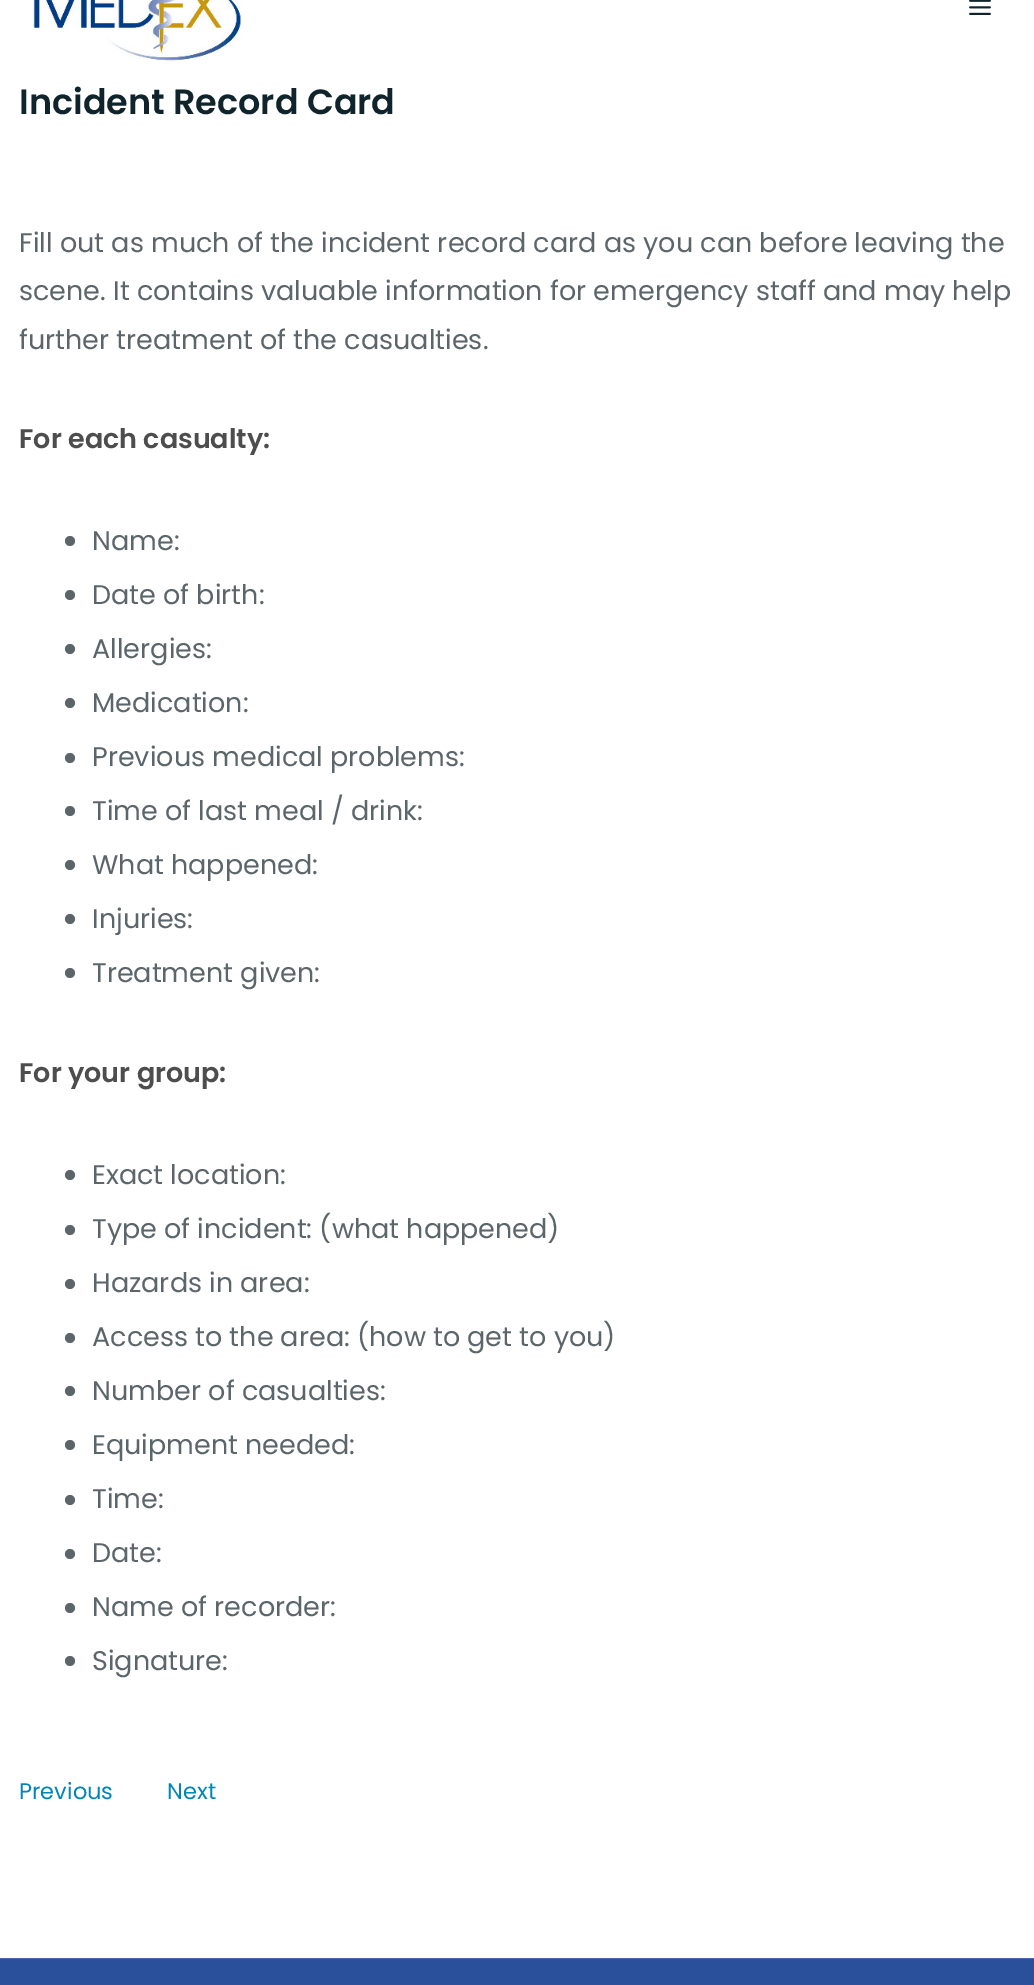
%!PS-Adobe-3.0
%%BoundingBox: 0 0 1034 1985
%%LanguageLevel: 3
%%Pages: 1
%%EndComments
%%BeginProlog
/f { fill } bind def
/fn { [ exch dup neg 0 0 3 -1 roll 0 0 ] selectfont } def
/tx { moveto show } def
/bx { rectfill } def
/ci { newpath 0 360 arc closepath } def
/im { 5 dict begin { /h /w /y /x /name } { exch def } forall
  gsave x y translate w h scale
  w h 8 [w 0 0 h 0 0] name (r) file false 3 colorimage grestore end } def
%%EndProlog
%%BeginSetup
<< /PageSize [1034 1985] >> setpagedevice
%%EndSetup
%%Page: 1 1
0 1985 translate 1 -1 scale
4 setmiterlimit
1 setgray
0 0 1034 1985 bx
(image0.raw) 32 0 209 65 im
(image1.raw) 969 0 22 15 im
/Poppins-SemiBold 35 fn
0.063 0.141 0.169 setrgbcolor
(Incident Record Card) 19 114 tx
/Poppins-Regular 27 fn
0.361 0.4 0.416 setrgbcolor
(Fill out as much of the incident record card as you can before leaving the) 19 252 tx
(scene. It contains valuable information for emergency staff and may help) 19 300 tx
(further treatment of the casualties.) 19 349 tx
/Poppins-SemiBold 27 fn
0.302 setgray
(For each casualty:) 19 448 tx
0.361 0.4 0.416 setrgbcolor
70 541 5 ci f
/Poppins-Regular 27 fn
(Name:) 92 550 tx
70 595 5 ci f
(Date of birth:) 92 604 tx
70 649 5 ci f
(Allergies:) 92 658 tx
70 703 5 ci f
(Medication:) 92 712 tx
70 758 5 ci f
(Previous medical problems:) 92 766 tx
70 811 5 ci f
(Time of last meal / drink:) 92 820 tx
70 865 5 ci f
(What happened:) 92 874 tx
70 919 5 ci f
(Injuries:) 92 928 tx
70 973 5 ci f
(Treatment given:) 92 982 tx
/Poppins-SemiBold 27 fn
0.302 setgray
(For your group:) 19 1082 tx
0.361 0.4 0.416 setrgbcolor
70 1175 5 ci f
/Poppins-Regular 27 fn
(Exact location:) 92 1184 tx
70 1230 5 ci f
(Type of incident: \(what happened\)) 92 1238 tx
70 1284 5 ci f
(Hazards in area:) 92 1292 tx
70 1338 5 ci f
(Access to the area: \(how to get to you\)) 92 1346 tx
70 1391 5 ci f
(Number of casualties:) 92 1400 tx
70 1445 5 ci f
(Equipment needed:) 92 1454 tx
70 1500 5 ci f
(Time:) 92 1508 tx
70 1554 5 ci f
(Date:) 92 1562 tx
70 1608 5 ci f
(Name of recorder:) 92 1616 tx
70 1661 5 ci f
(Signature:) 92 1670 tx
/Poppins-Regular 22.5 fn
0 0.522 0.729 setrgbcolor
(Previous) 19 1799 tx
(Next) 167 1799 tx
0.165 0.31 0.608 setrgbcolor
0 1959 1034 26 bx
0.29 0.412 0.667 setrgbcolor
0 1958 1034 1 bx
showpage
%%EOF
